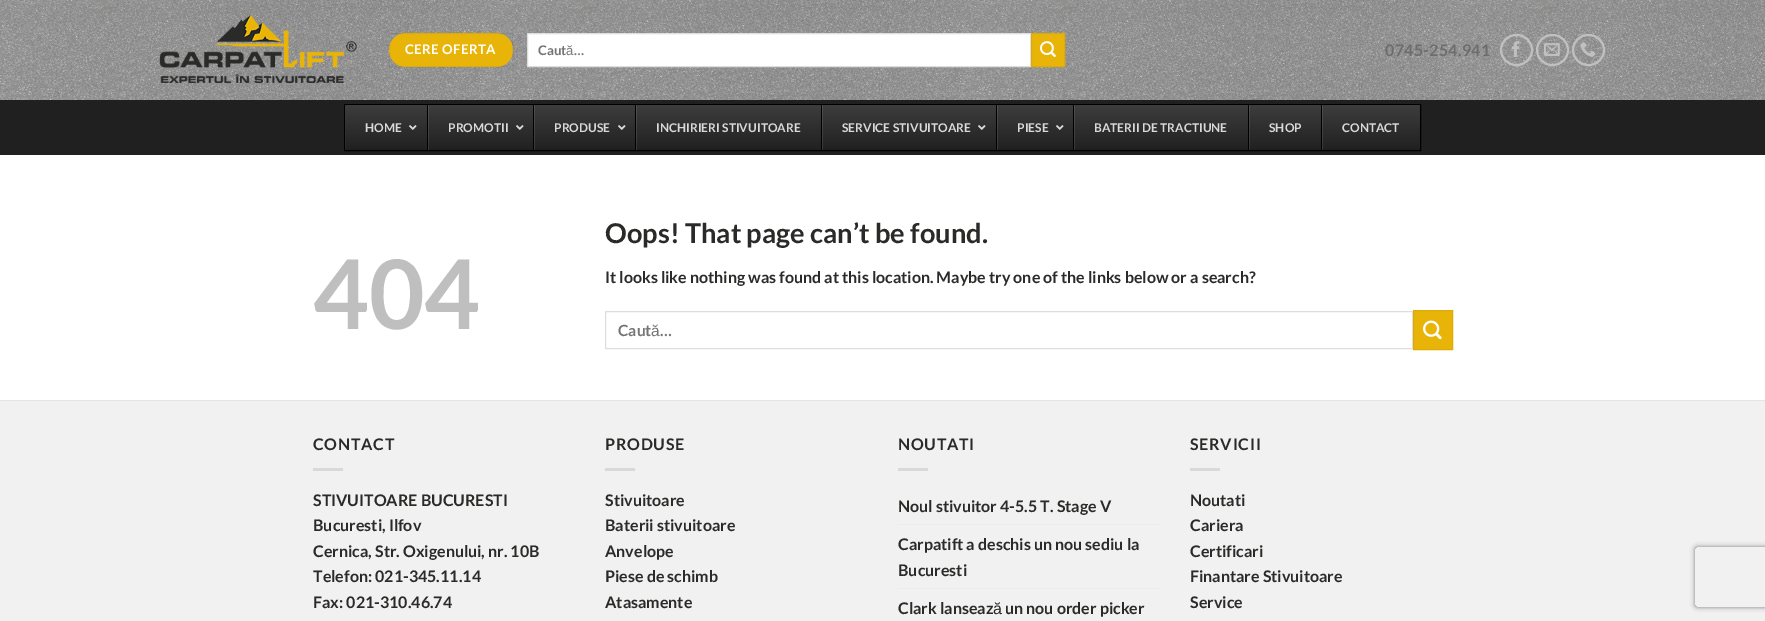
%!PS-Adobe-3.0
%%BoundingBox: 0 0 1765 621
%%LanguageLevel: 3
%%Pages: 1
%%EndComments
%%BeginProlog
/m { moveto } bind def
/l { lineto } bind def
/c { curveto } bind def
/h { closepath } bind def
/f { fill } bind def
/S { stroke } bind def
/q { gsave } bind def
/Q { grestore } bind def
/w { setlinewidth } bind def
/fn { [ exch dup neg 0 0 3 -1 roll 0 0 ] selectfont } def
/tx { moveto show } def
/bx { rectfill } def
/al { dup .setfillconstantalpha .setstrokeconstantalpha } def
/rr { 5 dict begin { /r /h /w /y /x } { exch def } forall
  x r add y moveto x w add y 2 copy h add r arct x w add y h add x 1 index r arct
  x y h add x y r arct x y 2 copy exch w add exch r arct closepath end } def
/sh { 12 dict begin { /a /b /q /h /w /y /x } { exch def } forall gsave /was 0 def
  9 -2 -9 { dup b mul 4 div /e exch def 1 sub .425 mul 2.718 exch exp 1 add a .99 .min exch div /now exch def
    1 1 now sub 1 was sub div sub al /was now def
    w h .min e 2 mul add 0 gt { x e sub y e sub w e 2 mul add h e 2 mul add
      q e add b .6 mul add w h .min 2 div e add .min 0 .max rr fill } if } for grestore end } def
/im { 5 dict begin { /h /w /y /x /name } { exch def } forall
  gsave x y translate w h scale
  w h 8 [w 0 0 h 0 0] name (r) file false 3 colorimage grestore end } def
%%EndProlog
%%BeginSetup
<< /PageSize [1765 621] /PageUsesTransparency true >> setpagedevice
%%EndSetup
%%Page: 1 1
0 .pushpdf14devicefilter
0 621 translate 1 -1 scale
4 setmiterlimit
1 setgray
0 0 1765 621 bx
(image0.raw) 0 0 1765 100 im
(image1.raw) 159 14 198 69 im
0.914 0.706 0.031 setrgbcolor
389 33 124 34 17 rr f
0.05 al
0 setgray
389.5 33.5 123 33 rectstroke
/Lato-Bold 13.25 fn
1 al
1 setgray
405 54 m 0.4 0 (CERE OFERTA) ashow
527.5 33.5 m 1030.5 33.5 l 1030.5 66.5 l 527.5 66.5 l h q f Q
0.867 setgray
S
0.459 setgray
(Caut) 538 55 tx
/LiberationSans-Regular 13.25 fn
(ă) 566 55 tx
/Lato-Bold 13.25 fn
(…) 574 55 tx
0.914 0.706 0.031 setrgbcolor
1031.5 33.5 m 1064.5 33.5 l 1064.5 66.5 l 1031.5 66.5 l h q f Q
0.867 0.671 0.031 setrgbcolor
S
(image2.raw) 1040 41 16 16 im
/Lato-Bold 16 fn
0.427 setgray
1385 56 m 0.25 0 (0745-254.941) ashow
0.753 setgray
2 w
1501 35 31 30 15 rr S
(image3.raw) 1512 41 8 16 im
1537 35 31 30 15 rr S
(image4.raw) 1544 43 16 13 im
1573 35 31 30 15 rr S
(image5.raw) 1580 42 16 15 im
0.125 setgray
0 100 1765 55 bx
q 345 105 m 1420 105 l 1420 148 l 345 148 l h clip newpath
<< /ShadingType 2 /ColorSpace /DeviceRGB /Coords [883 105 883 150] /Extend [true true] /Function << /FunctionType 2 /Domain [0 1] /C0 [0.239 0.239 0.239] /C1 [0.129 0.129 0.129] /N 1 >> >> shfill Q
q
345 105 1075 45 rectclip
0.1 al
1 setgray
246 6 m 1519 6 l 1519 249 l 246 249 l h 346 106 m 1421 106 l 1421 151 l 346 151 l h eofill
Q
0 setgray
1 w
344.5 104.5 1076 46 rectstroke
/Lato-Bold 12 fn
0.851 setgray
(HOME) 365 132 tx
(image6.raw) 409 125 8 5 im
0.1 al
1 setgray
428 105 1 45 bx
1 al
0 setgray
427 105 1 45 bx
0.851 setgray
(PROMOTII) 448 132 tx
(image6.raw) 516 125 8 5 im
0.1 al
1 setgray
534 105 1 45 bx
1 al
0 setgray
533 105 1 45 bx
0.851 setgray
(PRODUSE) 554 132 tx
(image6.raw) 618 125 8 5 im
0.1 al
1 setgray
636 105 1 45 bx
1 al
0 setgray
635 105 1 45 bx
0.851 setgray
(INCHIRIERI STIVUITOARE) 656 132 tx
0.1 al
1 setgray
822 105 1 45 bx
1 al
0 setgray
821 105 1 45 bx
0.851 setgray
(SERVICE STIVUITOARE) 842 132 tx
(image6.raw) 978 125 8 5 im
0.1 al
1 setgray
997 105 1 45 bx
1 al
0 setgray
996 105 1 45 bx
0.851 setgray
(PIESE) 1017 132 tx
(image6.raw) 1056 125 8 5 im
0.1 al
1 setgray
1074 105 1 45 bx
1 al
0 setgray
1073 105 1 45 bx
0.851 setgray
(BATERII DE TRACTIUNE) 1094 132 tx
0.1 al
1 setgray
1249 105 1 45 bx
1 al
0 setgray
1248 105 1 45 bx
0.851 setgray
(SHOP) 1269 132 tx
0.1 al
1 setgray
1322 105 1 45 bx
1 al
0 setgray
1321 105 1 45 bx
0.851 setgray
(CONTACT) 1342 132 tx
/Lato-Bold 96 fn
0.749 setgray
(404) 313 329 tx
/Lato-Bold 27.25 fn
0.165 0.165 0.161 setrgbcolor
(Oops! That page can’t be found.) 605 243 tx
/Lato-Bold 16 fn
(It looks like nothing was found at this location. Maybe try one of the links below or a search?) 605 283 tx
0.867 setgray
605.5 311.5 807 37 rectstroke
/Lato-Bold 15.5 fn
0.459 setgray
(Caut) 618 336 tx
/LiberationSans-Regular 15.5 fn
(ă) 651 336 tx
/Lato-Bold 15.5 fn
(…) 660 336 tx
0.914 0.706 0.031 setrgbcolor
1413.5 310.5 m 1452.5 310.5 l 1452.5 349.5 l 1413.5 349.5 l h q f Q
0.867 0.671 0.031 setrgbcolor
S
(image7.raw) 1423 320 19 20 im
0.945 setgray
0 401 1765 220 bx
0.898 setgray
0 400 1765 1 bx
/Lato-Bold 16 fn
0.165 0.165 0.161 setrgbcolor
313 450 m 0.75 0 (CONTACT) ashow
0.851 setgray
313 468 30 3 bx
0.165 0.165 0.161 setrgbcolor
(STIVUITOARE BUCURESTI) 313 506 tx
(Bucuresti, Ilfov) 313 531 tx
(Cernica, Str. Oxigenului, nr. 10B) 313 557 tx
(Telefon: 021-345.11.14) 313 582 tx
(Fax: 021-310.46.74) 313 608 tx
605 450 m 0.75 0 (PRODUSE) ashow
0.851 setgray
605 468 30 3 bx
0.165 0.165 0.161 setrgbcolor
(Stivuitoare) 605 506 tx
(Baterii stivuitoare) 605 531 tx
(Anvelope) 605 557 tx
(Piese de schimb) 605 582 tx
(Atasamente) 605 608 tx
898 450 m 0.75 0 (NOUTATI) ashow
0.851 setgray
898 468 30 3 bx
0.165 0.165 0.161 setrgbcolor
(Noul stivuitor 4-5.5 T. Stage V) 898 512 tx
0.925 setgray
898 524 262 1 bx
0.165 0.165 0.161 setrgbcolor
(Carpatift a deschis un nou sediu la) 898 550 tx
(Bucuresti) 898 576 tx
0.925 setgray
898 588 262 1 bx
0.165 0.165 0.161 setrgbcolor
(Clark lanseaz) 898 614 tx
/LiberationSans-Regular 16 fn
(ă) 993 614 tx
/Lato-Bold 16 fn
(un nou order picker) 1005 614 tx
1190 450 m 0.75 0 (SERVICII) ashow
0.851 setgray
1190 468 30 3 bx
0.165 0.165 0.161 setrgbcolor
(Noutati) 1190 506 tx
(Cariera) 1190 531 tx
(Certificari) 1190 557 tx
(Finantare Stivuitoare) 1190 582 tx
(Service) 1190 608 tx
q
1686 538 m 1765 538 l 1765 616 l 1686 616 l h 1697 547 m 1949 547 l 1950 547 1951 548 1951 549 c 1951 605 l 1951 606 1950 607 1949 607 c 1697 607 l 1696 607 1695 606 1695 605 c 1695 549 l 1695 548 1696 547 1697 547 c h eoclip newpath
0.502 setgray
1695 547 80 60 2 2.5 1 sh
Q
.poppdf14devicefilter showpage
%%EOF
